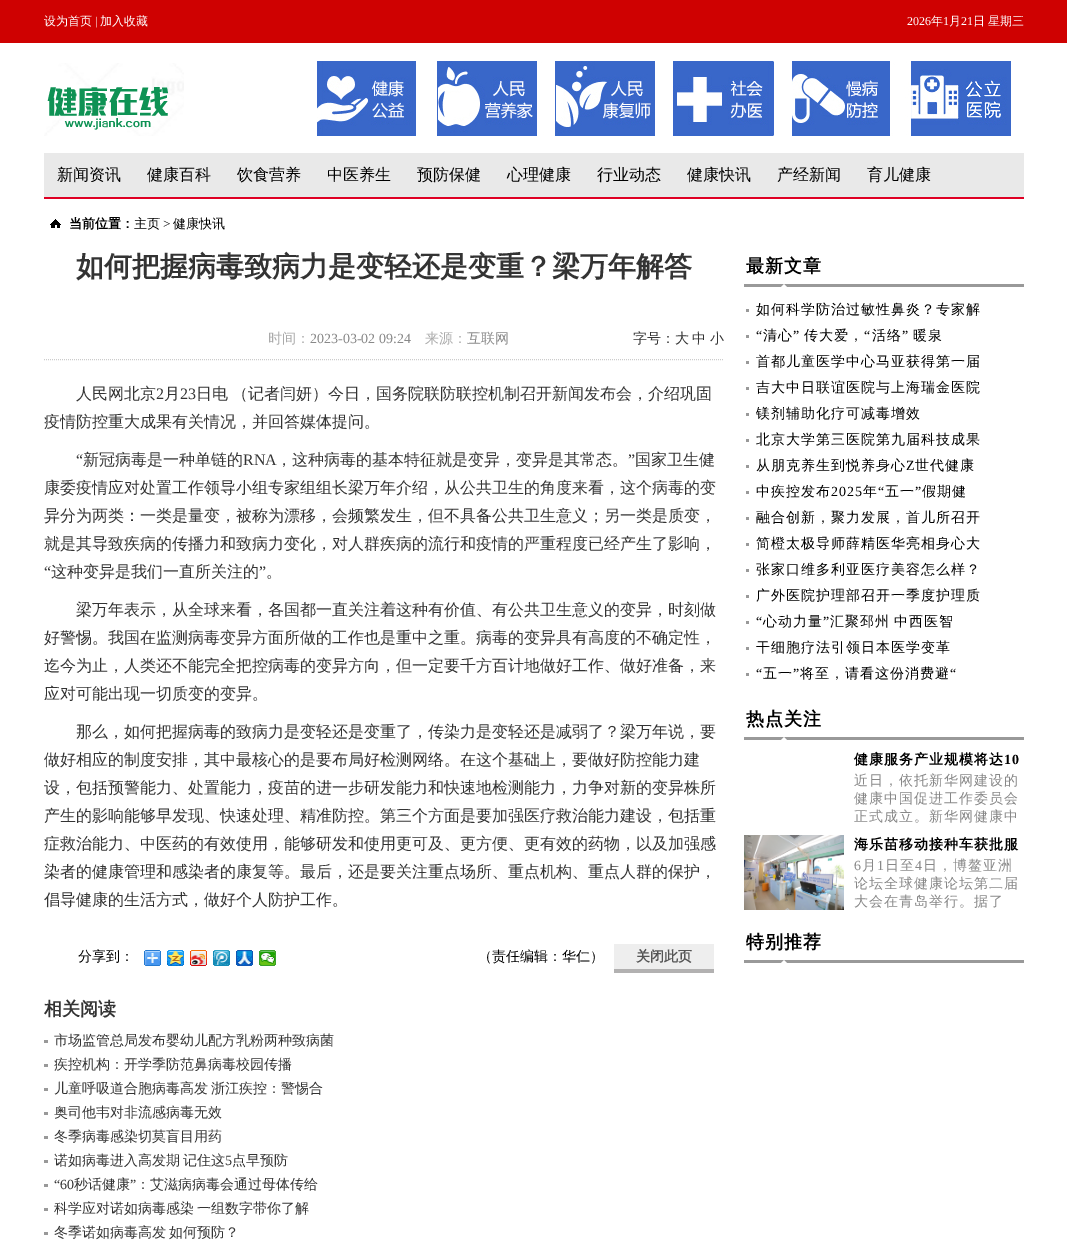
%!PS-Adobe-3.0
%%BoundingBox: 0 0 1067 1254
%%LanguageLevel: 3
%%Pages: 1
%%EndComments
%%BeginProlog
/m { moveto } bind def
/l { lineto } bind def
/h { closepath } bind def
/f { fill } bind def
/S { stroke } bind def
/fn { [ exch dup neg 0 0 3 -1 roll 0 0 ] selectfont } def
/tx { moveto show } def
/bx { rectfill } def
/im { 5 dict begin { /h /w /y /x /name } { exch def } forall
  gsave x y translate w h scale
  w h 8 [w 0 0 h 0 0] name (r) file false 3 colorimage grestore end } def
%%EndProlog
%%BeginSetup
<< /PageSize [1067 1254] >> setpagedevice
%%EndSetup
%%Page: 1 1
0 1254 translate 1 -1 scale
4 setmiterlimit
1 setgray
0 0 1067 1254 bx
0.812 0.004 0.004 setrgbcolor
0 0 1067 43 bx
/WenQuanYiZenHei-Medium 12 fn
1 setgray
(设为首页) 44 25 tx
/LiberationSerif-Regular 12 fn
(|) 95 25 tx
/WenQuanYiZenHei-Medium 12 fn
(加入收藏) 100 25 tx
/LiberationSerif-Regular 12 fn
(2026) 907 25 tx
/WenQuanYiZenHei-Medium 12 fn
(年) 931 25 tx
/LiberationSerif-Regular 12 fn
(1) 943 25 tx
/WenQuanYiZenHei-Medium 12 fn
(月) 949 25 tx
/LiberationSerif-Regular 12 fn
(21) 961 25 tx
/WenQuanYiZenHei-Medium 12 fn
973 25 m -1 0 32 (日 星期三) widthshow
(image0.raw) 44 63 140 73 im
(image1.raw) 317 61 694 75 im
0.914 setgray
44 153 980 44 bx
0.875 0 0.141 setrgbcolor
44 197 980 2 bx
/WenQuanYiZenHei-Medium 16 fn
0 setgray
(新闻资讯) 57 180 tx
(健康百科) 147 180 tx
(饮食营养) 237 180 tx
(中医养生) 327 180 tx
(预防保健) 417 180 tx
(心理健康) 507 180 tx
(行业动态) 597 180 tx
(健康快讯) 687 180 tx
(产经新闻) 777 180 tx
(育儿健康) 867 180 tx
(image2.raw) 50 219 11 9 im
/WenQuanYiZenHei-Bold 13 fn
(当前位置：) 69 228 tx
/WenQuanYiZenHei-Medium 13 fn
(主页) 134 228 tx
/LiberationSerif-Regular 13 fn
(>) 163 228 tx
/WenQuanYiZenHei-Medium 13 fn
(健康快讯) 173 228 tx
/WenQuanYiZenHei-Bold 28 fn
0.2 setgray
(如何把握病毒致病力是变轻还是变重？梁万年解答) 76 276 tx
0.8 setgray
[1 1] 0 setdash
44 359.5 m 724 359.5 l S
/WenQuanYiZenHei-Medium 14 fn
0.667 setgray
(时间：) 268 343 tx
/LiberationSerif-Regular 14 fn
0.533 setgray
(2023-03-02 09:24) 310 343 tx
/WenQuanYiZenHei-Medium 14 fn
0.667 setgray
(来源：) 425 343 tx
0.533 setgray
(互联网) 467 343 tx
0.2 setgray
(字号：大) 633 343 tx
(中) 692 343 tx
(小) 710 343 tx
/WenQuanYiZenHei-Medium 16 fn
(人民网北京) 76 399 tx
/LiberationSerif-Regular 16 fn
(2) 156 399 tx
/WenQuanYiZenHei-Medium 16 fn
(月) 164 399 tx
/LiberationSerif-Regular 16 fn
(23) 180 399 tx
/WenQuanYiZenHei-Medium 16 fn
196 399 m -1 0 32 (日电 （记者闫妍）今日，国务院联防联控机制召开新闻发布会，介绍巩固) widthshow
(疫情防控重大成果有关情况，并回答媒体提问。) 44 427 tx
/LiberationSerif-Regular 16 fn
(“) 76 465 tx
/WenQuanYiZenHei-Medium 16 fn
(新冠病毒是一种单链的) 83 465 tx
/LiberationSerif-Regular 16 fn
(RNA) 243 465 tx
/WenQuanYiZenHei-Medium 16 fn
(，这种病毒的基本特征就是变异，变异是其常态。) 276 465 tx
/LiberationSerif-Regular 16 fn
(”) 628 465 tx
/WenQuanYiZenHei-Medium 16 fn
(国家卫生健) 635 465 tx
(康委疫情应对处置工作领导小组专家组组长梁万年介绍，从公共卫生的角度来看，这个病毒的变) 44 493 tx
(异分为两类：一类是量变，被称为漂移，会频繁发生，但不具备公共卫生意义；另一类是质变，) 44 521 tx
(就是其导致疾病的传播力和致病力变化，对人群疾病的流行和疫情的严重程度已经产生了影响，) 44 549 tx
/LiberationSerif-Regular 16 fn
(“) 44 577 tx
/WenQuanYiZenHei-Medium 16 fn
(这种变异是我们一直所关注的) 51 577 tx
/LiberationSerif-Regular 16 fn
(”) 259 577 tx
/WenQuanYiZenHei-Medium 16 fn
(。) 266 577 tx
(梁万年表示，从全球来看，各国都一直关注着这种有价值、有公共卫生意义的变异，时刻做) 76 615 tx
(好警惕。我国在监测病毒变异方面所做的工作也是重中之重。病毒的变异具有高度的不确定性，) 44 643 tx
(迄今为止，人类还不能完全把控病毒的变异方向，但一定要千方百计地做好工作、做好准备，来) 44 671 tx
(应对可能出现一切质变的变异。) 44 699 tx
(那么，如何把握病毒的致病力是变轻还是变重了，传染力是变轻还是减弱了？梁万年说，要) 76 737 tx
(做好相应的制度安排，其中最核心的是要布局好检测网络。在这个基础上，要做好防控能力建) 44 765 tx
(设，包括预警能力、处置能力，疫苗的进一步研发能力和快速地检测能力，力争对新的变异株所) 44 793 tx
(产生的影响能够早发现、快速处理、精准防控。第三个方面是要加强医疗救治能力建设，包括重) 44 821 tx
(症救治能力、中医药的有效使用，能够研发和使用更可及、更方便、更有效的药物，以及加强感) 44 849 tx
(染者的健康管理和感染者的康复等。最后，还是要关注重点场所、重点机构、重点人群的保护，) 44 877 tx
(倡导健康的生活方式，做好个人防护工作。) 44 905 tx
/WenQuanYiZenHei-Medium 14 fn
0 setgray
(分享到：) 78 961 tx
(image3.raw) 144 950 17 16 im
(image4.raw) 167 950 17 16 im
(image5.raw) 190 950 17 16 im
(image6.raw) 213 950 17 16 im
(image7.raw) 236 950 17 16 im
(image8.raw) 259 950 17 16 im
(（责任编辑：华仁）) 478 961 tx
0.933 setgray
614 944 100 25 bx
0.698 0.694 0.694 setrgbcolor
614 969 100 4 bx
/WenQuanYiZenHei-Bold 14 fn
0.333 setgray
(关闭此页) 636 961 tx
/WenQuanYiZenHei-Bold 18 fn
0.2 setgray
(相关阅读) 44 1015 tx
0.6 setgray
44 1040 4 3 bx
/WenQuanYiZenHei-Medium 14 fn
0.2 setgray
(市场监管总局发布婴幼儿配方乳粉两种致病菌) 54 1045 tx
0.6 setgray
44 1064 4 3 bx
0.2 setgray
(疾控机构：开学季防范鼻病毒校园传播) 54 1069 tx
0.6 setgray
44 1088 4 3 bx
0.2 setgray
54 1093 m -1 0 32 (儿童呼吸道合胞病毒高发 浙江疾控：警惕合) widthshow
0.6 setgray
44 1112 4 3 bx
0.2 setgray
(奥司他韦对非流感病毒无效) 54 1117 tx
0.6 setgray
44 1136 4 3 bx
0.2 setgray
(冬季病毒感染切莫盲目用药) 54 1141 tx
0.6 setgray
44 1160 4 3 bx
0.2 setgray
54 1165 m -1 0 32 (诺如病毒进入高发期 记住这) widthshow
/LiberationSerif-Regular 14 fn
(5) 225 1165 tx
/WenQuanYiZenHei-Medium 14 fn
(点早预防) 232 1165 tx
0.6 setgray
44 1184 4 3 bx
/LiberationSerif-Regular 14 fn
0.2 setgray
(“60) 54 1189 tx
/WenQuanYiZenHei-Medium 14 fn
(秒话健康) 74 1189 tx
/LiberationSerif-Regular 14 fn
(”) 130 1189 tx
/WenQuanYiZenHei-Medium 14 fn
(：艾滋病病毒会通过母体传给) 136 1189 tx
0.6 setgray
44 1208 4 3 bx
0.2 setgray
54 1213 m -1 0 32 (科学应对诺如病毒感染 一组数字带你了解) widthshow
0.6 setgray
44 1232 4 3 bx
0.2 setgray
54 1237 m -1 0 32 (冬季诺如病毒高发 如何预防？) widthshow
0.6 setgray
744 284 280 3 bx
/WenQuanYiZenHei-Bold 18 fn
0 setgray
746 272 m 1 0 (最新文章) ashow
1 setgray
787 287 m 781 287 l 784 284 l h f
0.6 setgray
746 309 3 3 bx
/WenQuanYiZenHei-Medium 14 fn
0 setgray
756 314 m 1 0 (如何科学防治过敏性鼻炎？专家解) ashow
0.6 setgray
746 335 3 3 bx
/LiberationSerif-Regular 14 fn
0 setgray
756 340 m 1 0 (“) ashow
/WenQuanYiZenHei-Medium 14 fn
763 340 m 1 0 (清心) ashow
/LiberationSerif-Regular 14 fn
793 340 m 1 0 (”) ashow
/WenQuanYiZenHei-Medium 14 fn
804 340 m 1 0 (传大爱，) ashow
/LiberationSerif-Regular 14 fn
864 340 m 1 0 (“) ashow
/WenQuanYiZenHei-Medium 14 fn
872 340 m 1 0 (活络) ashow
/LiberationSerif-Regular 14 fn
902 340 m 1 0 (”) ashow
/WenQuanYiZenHei-Medium 14 fn
913 340 m 1 0 (暖泉) ashow
0.6 setgray
746 361 3 3 bx
0 setgray
756 366 m 1 0 (首都儿童医学中心马亚获得第一届) ashow
0.6 setgray
746 387 3 3 bx
0 setgray
756 392 m 1 0 (吉大中日联谊医院与上海瑞金医院) ashow
0.6 setgray
746 413 3 3 bx
0 setgray
756 418 m 1 0 (镁剂辅助化疗可减毒增效) ashow
0.6 setgray
746 439 3 3 bx
0 setgray
756 444 m 1 0 (北京大学第三医院第九届科技成果) ashow
0.6 setgray
746 465 3 3 bx
0 setgray
756 470 m 1 0 (从朋克养生到悦养身心) ashow
/LiberationSerif-Regular 14 fn
906 470 m 1 0 (Z) ashow
/WenQuanYiZenHei-Medium 14 fn
915 470 m 1 0 (世代健康) ashow
0.6 setgray
746 491 3 3 bx
0 setgray
756 496 m 1 0 (中疾控发布) ashow
/LiberationSerif-Regular 14 fn
831 496 m 1 0 (2025) ashow
/WenQuanYiZenHei-Medium 14 fn
863 496 m 1 0 (年) ashow
/LiberationSerif-Regular 14 fn
878 496 m 1 0 (“) ashow
/WenQuanYiZenHei-Medium 14 fn
885 496 m 1 0 (五一) ashow
/LiberationSerif-Regular 14 fn
915 496 m 1 0 (”) ashow
/WenQuanYiZenHei-Medium 14 fn
922 496 m 1 0 (假期健) ashow
0.6 setgray
746 517 3 3 bx
0 setgray
756 522 m 1 0 (融合创新，聚力发展，首儿所召开) ashow
0.6 setgray
746 543 3 3 bx
0 setgray
756 548 m 1 0 (简橙太极导师薛精医华亮相身心大) ashow
0.6 setgray
746 569 3 3 bx
0 setgray
756 574 m 1 0 (张家口维多利亚医疗美容怎么样？) ashow
0.6 setgray
746 595 3 3 bx
0 setgray
756 600 m 1 0 (广外医院护理部召开一季度护理质) ashow
0.6 setgray
746 621 3 3 bx
/LiberationSerif-Regular 14 fn
0 setgray
756 626 m 1 0 (“) ashow
/WenQuanYiZenHei-Medium 14 fn
763 626 m 1 0 (心动力量) ashow
/LiberationSerif-Regular 14 fn
823 626 m 1 0 (”) ashow
/WenQuanYiZenHei-Medium 14 fn
830 626 m -1 0 32 1 0 (汇聚邳州 中西医智) awidthshow
0.6 setgray
746 647 3 3 bx
0 setgray
756 652 m 1 0 (干细胞疗法引领日本医学变革) ashow
0.6 setgray
746 673 3 3 bx
/LiberationSerif-Regular 14 fn
0 setgray
756 678 m 1 0 (“) ashow
/WenQuanYiZenHei-Medium 14 fn
763 678 m 1 0 (五一) ashow
/LiberationSerif-Regular 14 fn
793 678 m 1 0 (”) ashow
/WenQuanYiZenHei-Medium 14 fn
800 678 m 1 0 (将至，请看这份消费避) ashow
/LiberationSerif-Regular 14 fn
950 678 m 1 0 (“) ashow
0.6 setgray
744 737 280 3 bx
/WenQuanYiZenHei-Bold 18 fn
0 setgray
746 725 m 1 0 (热点关注) ashow
1 setgray
787 740 m 781 740 l 784 737 l h f
/WenQuanYiZenHei-Bold 14 fn
0 setgray
854 764 m 1 0 (健康服务产业规模将达) ashow
/LiberationSerif-Bold 14 fn
1004 764 m 1 0 (10) ashow
/WenQuanYiZenHei-Medium 14 fn
0.533 setgray
854 785 m 1 0 (近日，依托新华网建设的) ashow
854 803 m 1 0 (健康中国促进工作委员会) ashow
854 821 m 1 0 (正式成立。新华网健康中) ashow
(image9.raw) 744 835 100 75 im
/WenQuanYiZenHei-Bold 14 fn
0 setgray
854 849 m 1 0 (海乐苗移动接种车获批服) ashow
/LiberationSerif-Regular 14 fn
0.533 setgray
854 870 m 1 0 (6) ashow
/WenQuanYiZenHei-Medium 14 fn
862 870 m 1 0 (月) ashow
/LiberationSerif-Regular 14 fn
877 870 m 1 0 (1) ashow
/WenQuanYiZenHei-Medium 14 fn
885 870 m 1 0 (日至) ashow
/LiberationSerif-Regular 14 fn
915 870 m 1 0 (4) ashow
/WenQuanYiZenHei-Medium 14 fn
923 870 m 1 0 (日，博鳌亚洲) ashow
854 888 m 1 0 (论坛全球健康论坛第二届) ashow
854 906 m 1 0 (大会在青岛举行。据了) ashow
0.6 setgray
744 960 280 3 bx
/WenQuanYiZenHei-Bold 18 fn
0 setgray
746 948 m 1 0 (特别推荐) ashow
1 setgray
787 963 m 781 963 l 784 960 l h f
showpage
%%EOF
